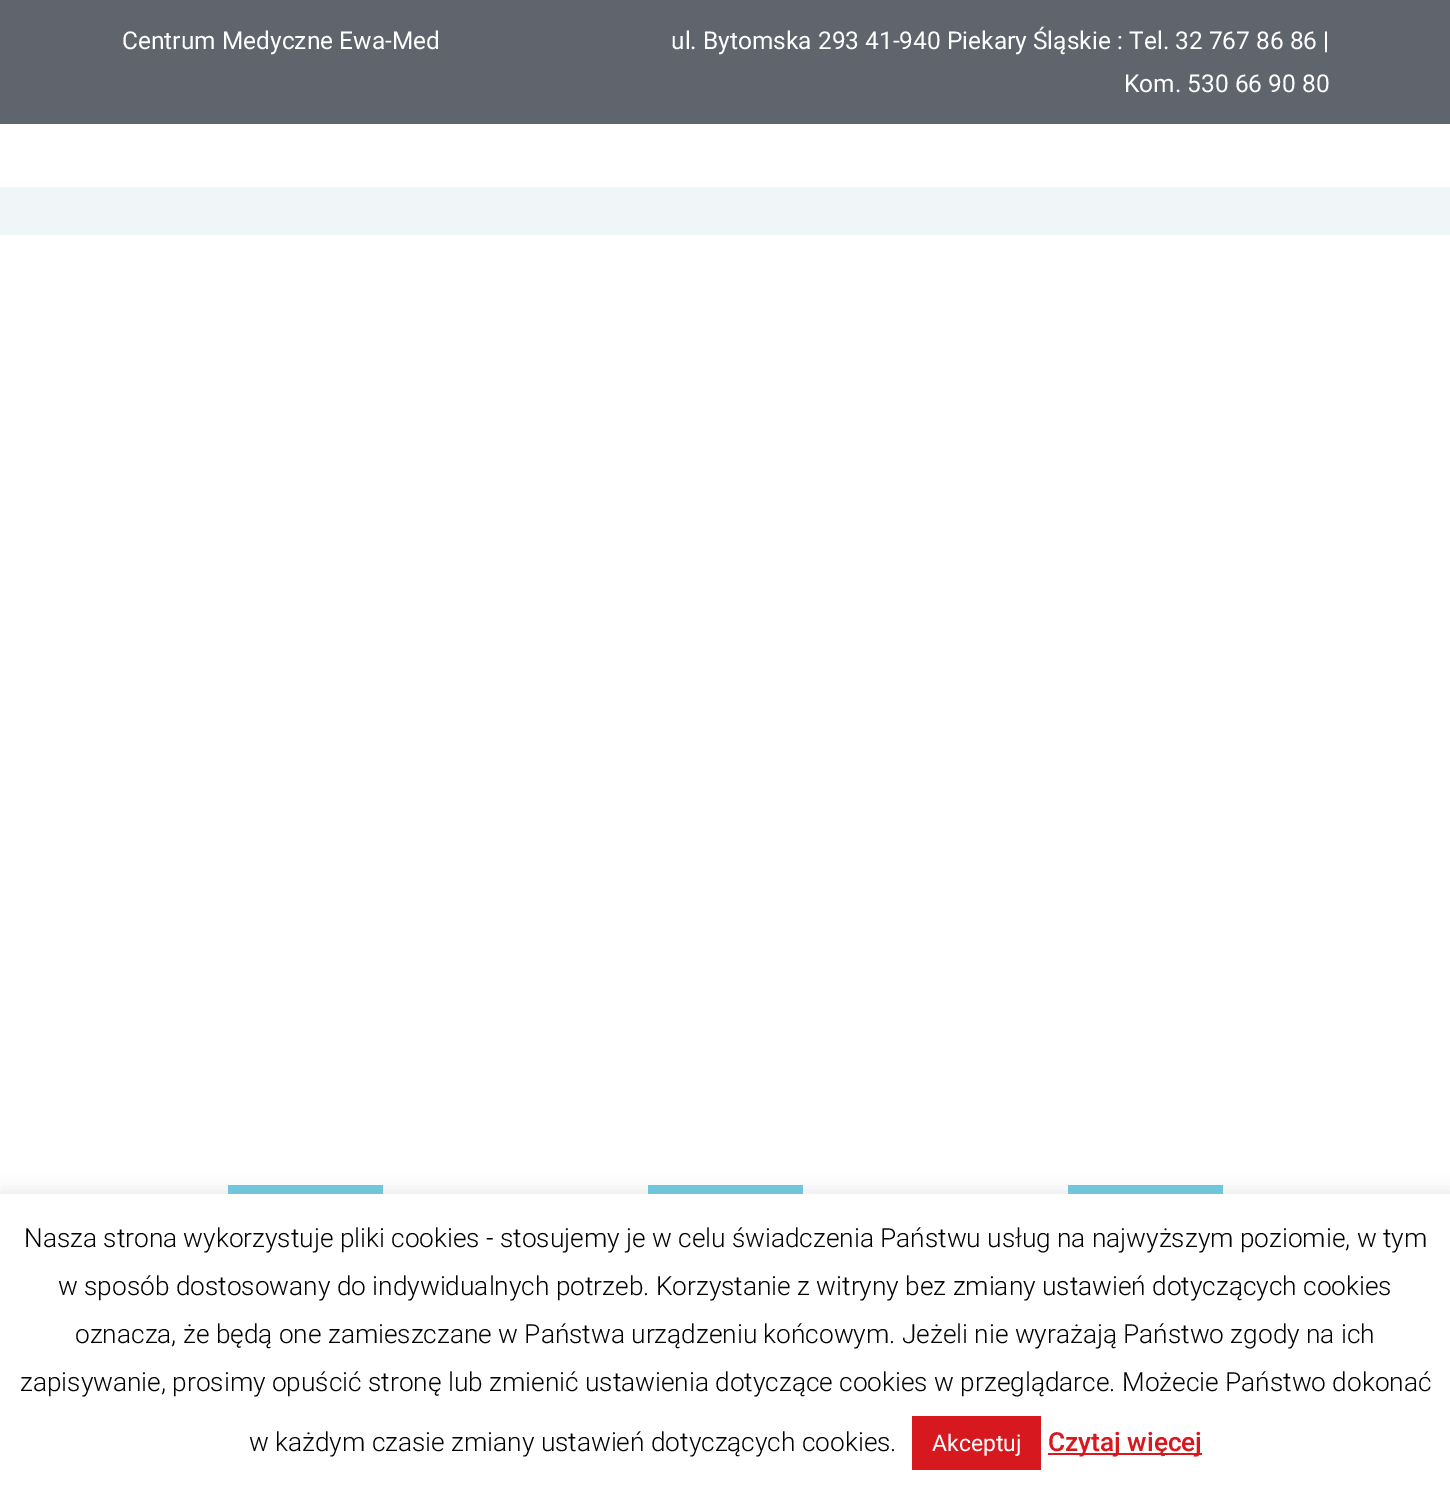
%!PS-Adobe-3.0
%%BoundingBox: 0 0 1450 1491
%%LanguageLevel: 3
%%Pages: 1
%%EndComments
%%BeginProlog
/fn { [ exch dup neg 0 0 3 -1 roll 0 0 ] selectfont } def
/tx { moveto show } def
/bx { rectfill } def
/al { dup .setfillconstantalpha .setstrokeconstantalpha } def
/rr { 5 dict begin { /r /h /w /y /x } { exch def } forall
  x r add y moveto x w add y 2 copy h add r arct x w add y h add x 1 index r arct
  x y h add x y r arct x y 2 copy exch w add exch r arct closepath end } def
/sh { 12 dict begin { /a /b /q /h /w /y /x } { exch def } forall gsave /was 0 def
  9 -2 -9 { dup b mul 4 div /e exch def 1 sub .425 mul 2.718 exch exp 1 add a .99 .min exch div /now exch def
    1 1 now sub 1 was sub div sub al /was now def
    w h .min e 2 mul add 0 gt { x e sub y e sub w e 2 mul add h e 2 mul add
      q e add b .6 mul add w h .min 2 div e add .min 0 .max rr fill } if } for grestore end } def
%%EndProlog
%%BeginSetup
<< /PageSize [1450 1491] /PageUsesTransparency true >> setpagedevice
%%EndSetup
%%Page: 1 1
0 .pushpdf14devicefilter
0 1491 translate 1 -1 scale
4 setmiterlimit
0.941 0.961 0.969 setrgbcolor
0 0 1450 1491 bx
0.376 0.392 0.427 setrgbcolor
0 0 1450 124 bx
/Roboto-Regular 24.5 fn
1 setgray
(Centrum Medyczne Ewa-Med) 122 49 tx
(ul. Bytomska 293 41-940 Piekary Śląskie :) 671 49 tx
(Tel. 32 767 86 86 |) 1129 49 tx
(Kom. 530 66 90 80) 1124 92 tx
0 124 1450 63 bx
0 235 1450 959 bx
0.404 0.788 0.878 setrgbcolor
228 1185 155 9 bx
648 1185 155 9 bx
1068 1185 155 9 bx
0.675 0.671 0.671 setrgbcolor
0 1192 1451 297 0 9 0.3 sh
1 setgray
0 1194 1450 297 bx
/Roboto-Light 26.25 fn
0 setgray
(Nasza strona wykorzystuje pliki cookies - stosujemy je w celu świadczenia Państwu usług na najwyższym poziomie, w tym) 24 1247 tx
(w sposób dostosowany do indywidualnych potrzeb. Korzystanie z witryny bez zmiany ustawień dotyczących cookies) 58 1295 tx
(oznacza, że będą one zamieszczane w Państwa urządzeniu końcowym. Jeżeli nie wyrażają Państwo zgody na ich) 75 1343 tx
(zapisywanie, prosimy opuścić stronę lub zmienić ustawienia dotyczące cookies w przeglądarce. Możecie Państwo dokonać) 20 1391 tx
(w każdym czasie zmiany ustawień dotyczących cookies.) 249 1451 tx
0.843 0.094 0.118 setrgbcolor
912 1416 129 54 bx
/Roboto-Regular 23 fn
1 setgray
(Akceptuj) 932 1451 tx
0.843 0.094 0.118 setrgbcolor
1048 1453 154 2 bx
/Roboto-Medium 26.25 fn
(Czytaj więcej) 1048 1451 tx
.poppdf14devicefilter showpage
%%EOF
